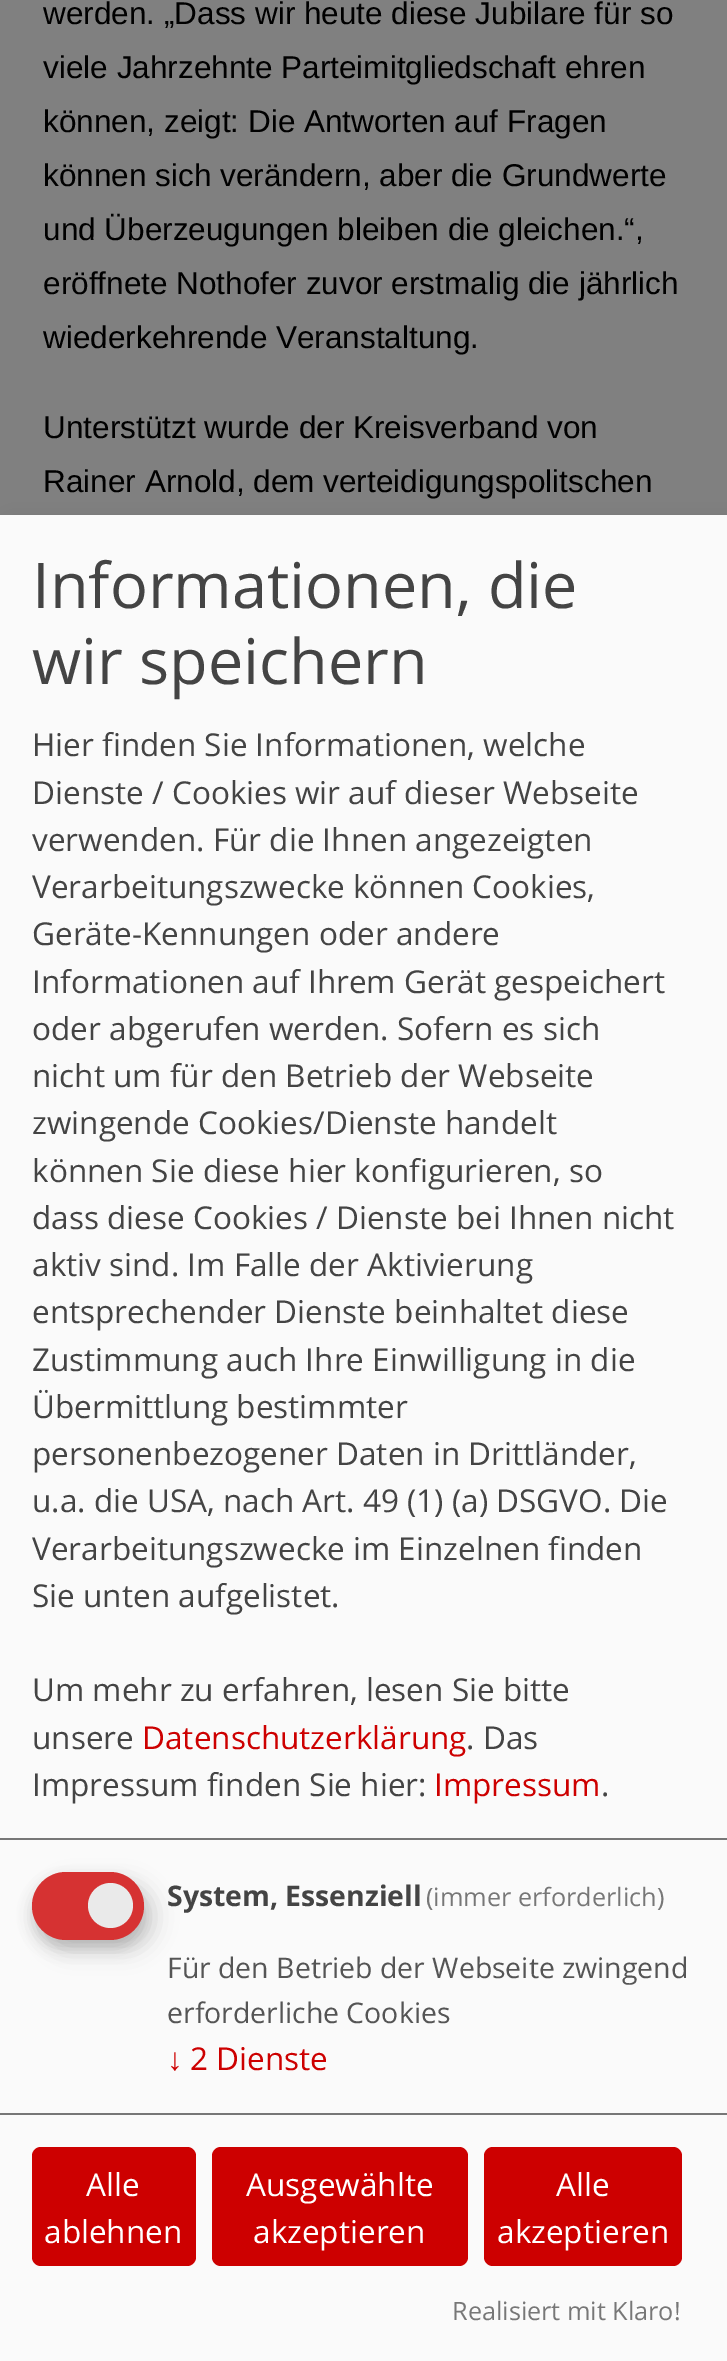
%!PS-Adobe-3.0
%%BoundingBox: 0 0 727 2361
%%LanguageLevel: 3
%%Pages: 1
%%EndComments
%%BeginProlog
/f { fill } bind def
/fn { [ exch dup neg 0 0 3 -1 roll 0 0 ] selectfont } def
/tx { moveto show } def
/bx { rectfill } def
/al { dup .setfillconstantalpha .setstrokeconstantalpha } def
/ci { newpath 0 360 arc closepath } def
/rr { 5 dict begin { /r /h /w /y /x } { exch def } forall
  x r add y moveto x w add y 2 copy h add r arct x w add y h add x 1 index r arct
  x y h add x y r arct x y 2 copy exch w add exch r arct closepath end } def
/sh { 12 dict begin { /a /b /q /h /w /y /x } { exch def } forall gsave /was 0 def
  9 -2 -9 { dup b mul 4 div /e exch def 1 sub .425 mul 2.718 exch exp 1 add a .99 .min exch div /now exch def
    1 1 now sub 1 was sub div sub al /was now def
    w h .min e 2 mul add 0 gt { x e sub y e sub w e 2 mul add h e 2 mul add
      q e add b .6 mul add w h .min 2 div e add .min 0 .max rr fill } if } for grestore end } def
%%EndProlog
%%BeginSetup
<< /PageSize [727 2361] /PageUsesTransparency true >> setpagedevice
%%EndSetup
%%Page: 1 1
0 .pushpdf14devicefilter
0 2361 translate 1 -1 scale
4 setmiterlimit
0.502 setgray
0 0 727 2361 bx
/LiberationSans-Regular 31.5 fn
0 setgray
(werden. „Dass wir heute diese Jubilare für so) 43 24 tx
(viele Jahrzehnte Parteimitgliedschaft ehren) 43 78 tx
(können, zeigt: Die Antworten auf Fragen) 43 132 tx
(können sich verändern, aber die Grundwerte) 43 186 tx
(und Überzeugungen bleiben die gleichen.“,) 43 240 tx
(eröffnete Nothofer zuvor erstmalig die jährlich) 43 294 tx
(wiederkehrende Veranstaltung.) 43 348 tx
(Unterstützt wurde der Kreisverband von) 43 438 tx
(Rainer Arnold, dem verteidigungspolitschen) 43 492 tx
11 527 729 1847 0 11 0.19 sh
0.98 setgray
0 515 727 1846 bx
0.467 setgray
0 1838 727 2 bx
/OpenSans-Regular 63 fn
0.267 setgray
(Informationen, die) 32 608 tx
(wir speichern) 32 684 tx
/OpenSans-Regular 31.5 fn
(Hier finden Sie Informationen, welche) 32 756 tx
(Dienste / Cookies wir auf dieser Webseite) 32 804 tx
(verwenden. Für die Ihnen angezeigten) 32 851 tx
(Verarbeitungszwecke können Cookies,) 32 898 tx
(Geräte-Kennungen oder andere) 32 945 tx
(Informationen auf Ihrem Gerät gespeichert) 32 993 tx
(oder abgerufen werden. Sofern es sich) 32 1040 tx
(nicht um für den Betrieb der Webseite) 32 1087 tx
(zwingende Cookies/Dienste handelt) 32 1134 tx
(können Sie diese hier konfigurieren, so) 32 1182 tx
(dass diese Cookies / Dienste bei Ihnen nicht) 32 1229 tx
(aktiv sind. Im Falle der Aktivierung) 32 1276 tx
(entsprechender Dienste beinhaltet diese) 32 1323 tx
(Zustimmung auch Ihre Einwilligung in die) 32 1371 tx
(Übermittlung bestimmter) 32 1418 tx
(personenbezogener Daten in Drittländer,) 32 1465 tx
(u.a. die USA, nach Art. 49 \(1\) \(a\) DSGVO. Die) 32 1512 tx
(Verarbeitungszwecke im Einzelnen finden) 32 1560 tx
(Sie unten aufgelistet.) 32 1607 tx
(Um mehr zu erfahren, lesen Sie bitte) 32 1701 tx
(unsere) 32 1749 tx
0.804 0 0 setrgbcolor
(Datenschutzerklärung) 142 1749 tx
0.267 setgray
(. Das) 466 1749 tx
(Impressum finden Sie hier:) 32 1796 tx
0.804 0 0 setrgbcolor
(Impressum) 434 1796 tx
0.267 setgray
(.) 601 1796 tx
0 setgray
43 1883 112 68 34 11 0.15 sh
0.196 setgray
32 1881 112 68 34 7 0.2 sh
0.839 0.196 0.196 setrgbcolor
32 1872 112 68 34 rr f
0.918 setgray
110.5 1905.5 22.5 ci f
/OpenSans-Bold 28.4 fn
0.267 setgray
(System, Essenziell) 167 1906 tx
/OpenSans-Regular 25.25 fn
0.467 setgray
(\(immer erforderlich\)) 426 1906 tx
/OpenSans-Regular 28.4 fn
0.333 setgray
(Für den Betrieb der Webseite zwingend) 167 1978 tx
(erforderliche Cookies) 167 2023 tx
/LiberationSans-Regular 31.5 fn
0.804 0 0 setrgbcolor
(↓) 167 2070 tx
/OpenSans-Regular 31.5 fn
(2 Dienste) 190 2070 tx
0.467 setgray
0 2113 727 2 bx
0.804 0 0 setrgbcolor
32 2147 164 119 9 rr f
1 setgray
(Alle) 86 2196 tx
(ablehnen) 44 2243 tx
0.804 0 0 setrgbcolor
212 2147 256 119 9 rr f
1 setgray
(Ausgewählte) 246 2196 tx
(akzeptieren) 253 2243 tx
0.804 0 0 setrgbcolor
484 2147 198 119 9 rr f
1 setgray
(Alle) 556 2196 tx
(akzeptieren) 497 2243 tx
/OpenSans-Regular 25.25 fn
0.467 setgray
(Realisiert mit Klaro!) 452 2320 tx
.poppdf14devicefilter showpage
%%EOF
